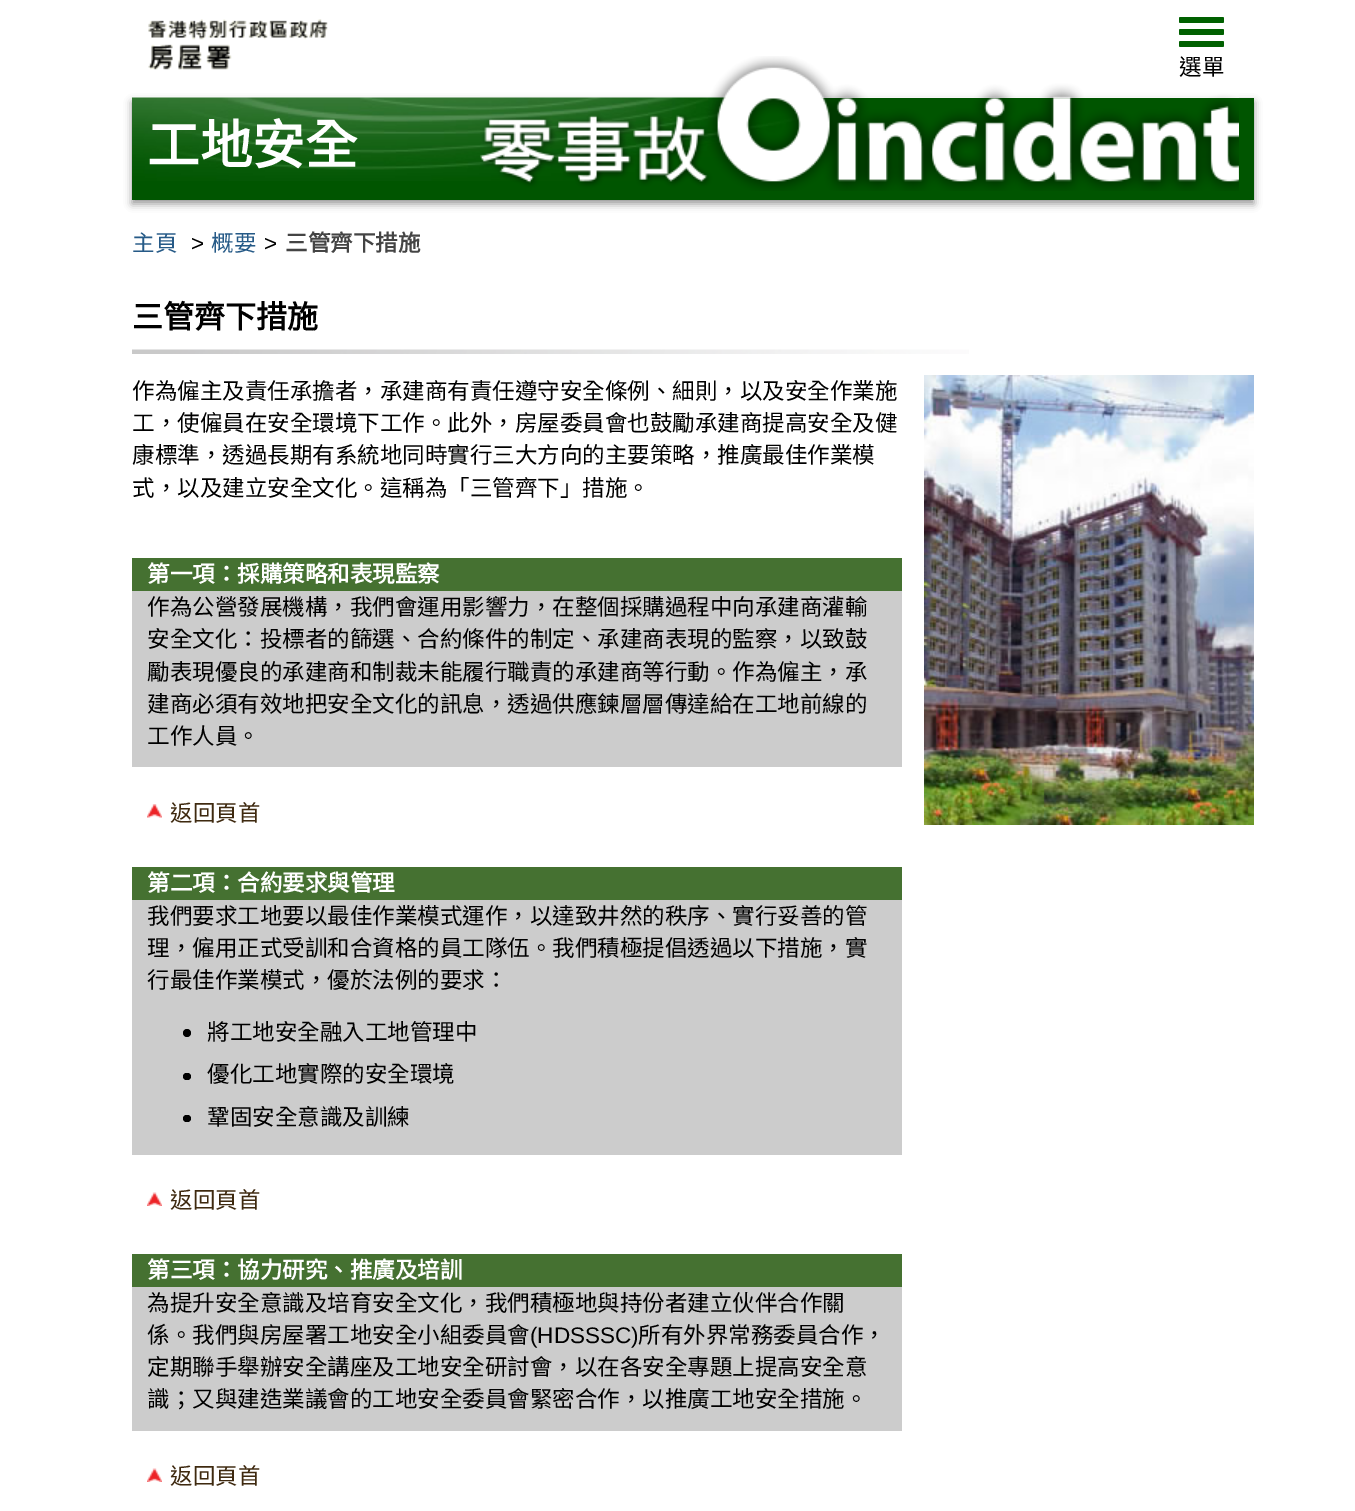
%!PS-Adobe-3.0
%%BoundingBox: 0 0 1355 1511
%%LanguageLevel: 3
%%Pages: 1
%%EndComments
%%BeginProlog
/f { fill } bind def
/fn { [ exch dup neg 0 0 3 -1 roll 0 0 ] selectfont } def
/tx { moveto show } def
/bx { rectfill } def
/al { dup .setfillconstantalpha .setstrokeconstantalpha } def
/ci { newpath 0 360 arc closepath } def
/rr { 5 dict begin { /r /h /w /y /x } { exch def } forall
  x r add y moveto x w add y 2 copy h add r arct x w add y h add x 1 index r arct
  x y h add x y r arct x y 2 copy exch w add exch r arct closepath end } def
/sh { 12 dict begin { /a /b /q /h /w /y /x } { exch def } forall gsave /was 0 def
  9 -2 -9 { dup b mul 4 div /e exch def 1 sub .425 mul 2.718 exch exp 1 add a .99 .min exch div /now exch def
    1 1 now sub 1 was sub div sub al /was now def
    w h .min e 2 mul add 0 gt { x e sub y e sub w e 2 mul add h e 2 mul add
      q e add b .6 mul add w h .min 2 div e add .min 0 .max rr fill } if } for grestore end } def
/im { 5 dict begin { /h /w /y /x /name } { exch def } forall
  gsave x y translate w h scale
  w h 8 [w 0 0 h 0 0] name (r) file false 3 colorimage grestore end } def
%%EndProlog
%%BeginSetup
<< /PageSize [1355 1511] /PageUsesTransparency true >> setpagedevice
%%EndSetup
%%Page: 1 1
0 .pushpdf14devicefilter
0 1511 translate 1 -1 scale
4 setmiterlimit
1 setgray
0 0 1355 1511 bx
(image0.raw) 148 19 180 51 im
0 0.376 0 setrgbcolor
1179 17 45 6 1.5 rr f
1179 29 45 6 1.5 rr f
1179 41 45 6 1.5 rr f
0 setgray
132 102 1122 102 0 4 0.4 sh
0 0.333 0 setrgbcolor
132 98 1122 102 bx
(image1.raw) 132 97 690 84 im
(image2.raw) 480 56 759 135 im
/NotoSansCJKHK-Regular 22.5 fn
0 setgray
(選單) 1179 75 tx
/NotoSansCJKHK-Bold 52.5 fn
1 setgray
(工地安全) 147 164 tx
/NotoSansCJKHK-Regular 22.5 fn
0.149 0.353 0.529 setrgbcolor
(主頁) 132 251 tx
/LiberationSans-Regular 22.5 fn
0 setgray
(>) 191 251 tx
/NotoSansCJKHK-Regular 22.5 fn
0.149 0.353 0.529 setrgbcolor
(概要) 211 251 tx
/LiberationSans-Regular 22.5 fn
0 setgray
(>) 264 251 tx
/NotoSansCJKHK-Bold 22.5 fn
0.267 setgray
(三管齊下措施) 285 251 tx
/NotoSansCJKHK-Bold 31 fn
0 setgray
(三管齊下措施) 132 328 tx
(image3.raw) 132 349 837 5 im
/NotoSansCJKHK-Regular 22.5 fn
(作為僱主及責任承擔者，承建商有責任遵守安全條例、細則，以及安全作業施) 132 399 tx
(工，使僱員在安全環境下工作。此外，房屋委員會也鼓勵承建商提高安全及健) 132 431 tx
(康標準，透過長期有系統地同時實行三大方向的主要策略，推廣最佳作業模) 132 463 tx
(式，以及建立安全文化。這稱為「三管齊下」措施。) 132 496 tx
(image4.raw) 924 375 330 450 im
0.271 0.443 0.192 setrgbcolor
132 558 770 33 bx
/NotoSansCJKHK-Bold 22.5 fn
1 setgray
(第一項：採購策略和表現監察) 147 582 tx
0.8 setgray
132 591 770 176 bx
/NotoSansCJKHK-Regular 22.5 fn
0 setgray
(作為公營發展機構，我們會運用影響力，在整個採購過程中向承建商灌輸) 147 615 tx
(安全文化：投標者的篩選、合約條件的制定、承建商表現的監察，以致鼓) 147 647 tx
(勵表現優良的承建商和制裁未能履行職責的承建商等行動。作為僱主，承) 147 680 tx
(建商必須有效地把安全文化的訊息，透過供應鍊層層傳達給在工地前線的) 147 712 tx
(工作人員。) 147 744 tx
(image5.raw) 147 804 15 14 im
0.243 0.161 0.059 setrgbcolor
(返回頁首) 170 821 tx
0.271 0.443 0.192 setrgbcolor
132 867 770 33 bx
/NotoSansCJKHK-Bold 22.5 fn
1 setgray
(第二項：合約要求與管理) 147 891 tx
0.8 setgray
132 900 770 255 bx
/NotoSansCJKHK-Regular 22.5 fn
0 setgray
(我們要求工地要以最佳作業模式運作，以達致井然的秩序、實行妥善的管) 147 924 tx
(理，僱用正式受訓和合資格的員工隊伍。我們積極提倡透過以下措施，實) 147 956 tx
(行最佳作業模式，優於法例的要求：) 147 988 tx
187 1033 4 ci f
(將工地安全融入工地管理中) 207 1040 tx
183 1073 8 7 3.5 rr f
(優化工地實際的安全環境) 207 1082 tx
183 1115 8 7 3.5 rr f
(鞏固安全意識及訓練) 207 1125 tx
(image6.raw) 147 1192 15 14 im
0.243 0.161 0.059 setrgbcolor
(返回頁首) 170 1208 tx
0.271 0.443 0.192 setrgbcolor
132 1254 770 33 bx
/NotoSansCJKHK-Bold 22.5 fn
1 setgray
(第三項：協力研究、推廣及培訓) 147 1278 tx
0.8 setgray
132 1287 770 144 bx
/NotoSansCJKHK-Regular 22.5 fn
0 setgray
(為提升安全意識及培育安全文化，我們積極地與持份者建立伙伴合作關) 147 1311 tx
(係。我們與房屋署工地安全小組委員會) 147 1343 tx
/LiberationSans-Regular 22.5 fn
(\(HDSSSC\)) 530 1343 tx
/NotoSansCJKHK-Regular 22.5 fn
(所有外界常務委員合作，) 638 1343 tx
(定期聯手舉辦安全講座及工地安全研討會，以在各安全專題上提高安全意) 147 1375 tx
(識；又與建造業議會的工地安全委員會緊密合作，以推廣工地安全措施。) 147 1407 tx
(image6.raw) 147 1468 15 14 im
0.243 0.161 0.059 setrgbcolor
(返回頁首) 170 1484 tx
.poppdf14devicefilter showpage
%%EOF
